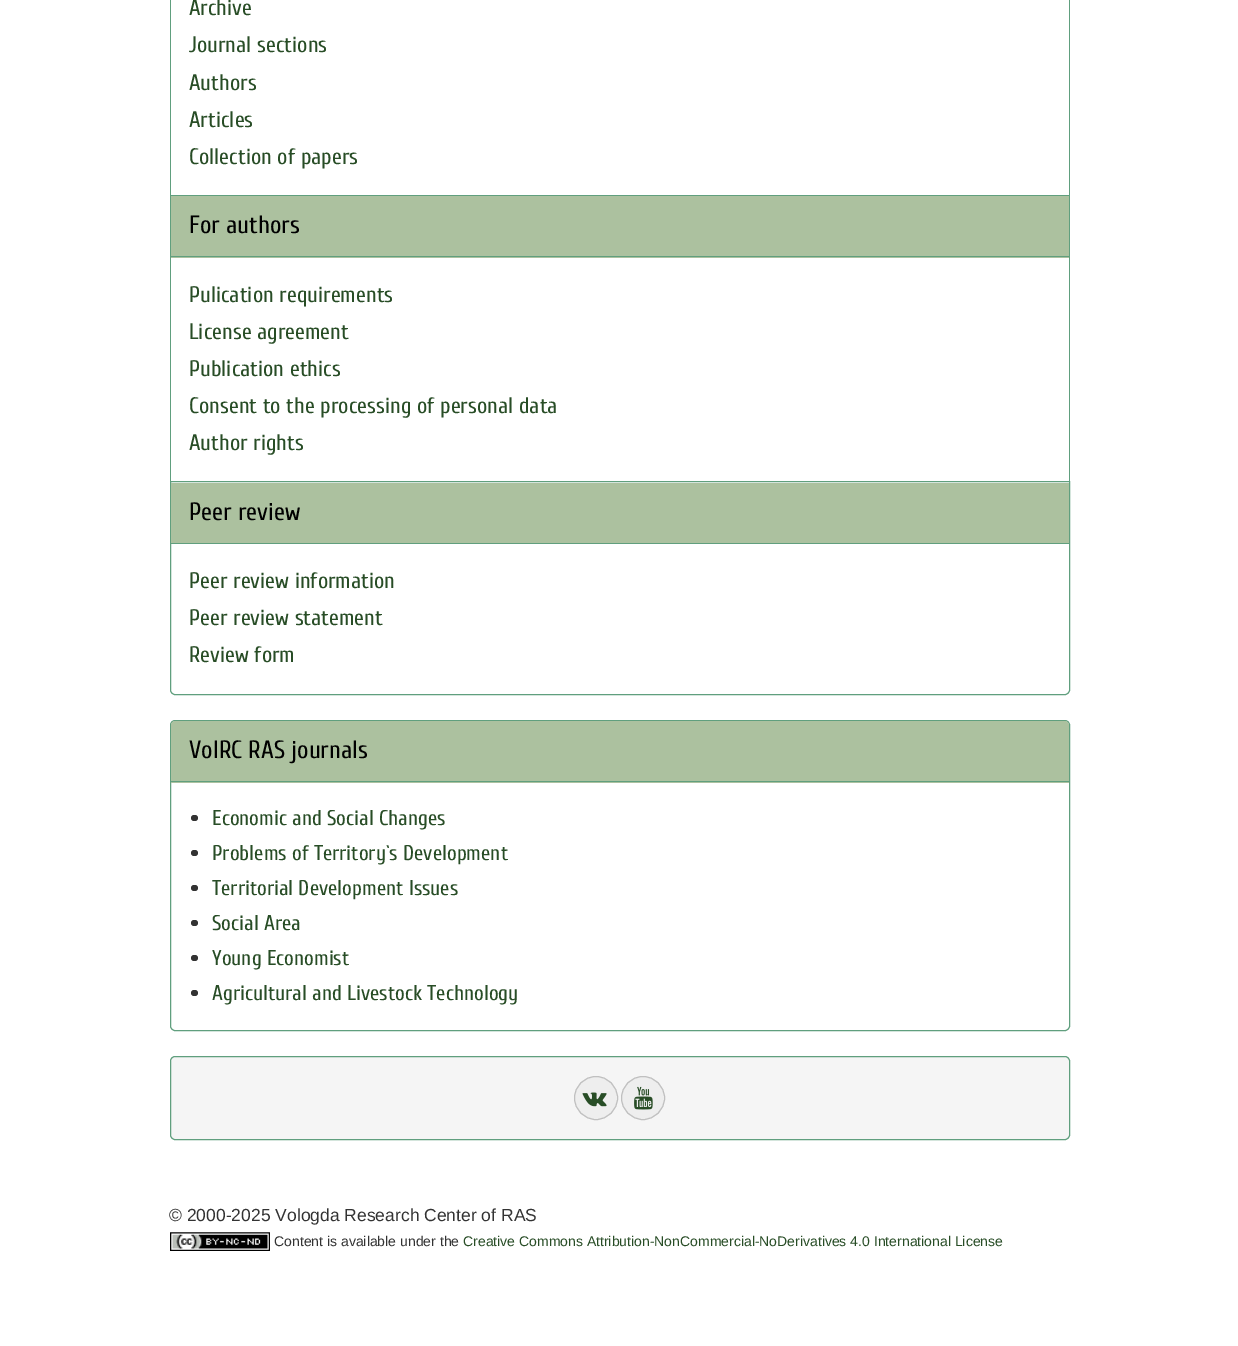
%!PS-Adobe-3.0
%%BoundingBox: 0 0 1238 1346
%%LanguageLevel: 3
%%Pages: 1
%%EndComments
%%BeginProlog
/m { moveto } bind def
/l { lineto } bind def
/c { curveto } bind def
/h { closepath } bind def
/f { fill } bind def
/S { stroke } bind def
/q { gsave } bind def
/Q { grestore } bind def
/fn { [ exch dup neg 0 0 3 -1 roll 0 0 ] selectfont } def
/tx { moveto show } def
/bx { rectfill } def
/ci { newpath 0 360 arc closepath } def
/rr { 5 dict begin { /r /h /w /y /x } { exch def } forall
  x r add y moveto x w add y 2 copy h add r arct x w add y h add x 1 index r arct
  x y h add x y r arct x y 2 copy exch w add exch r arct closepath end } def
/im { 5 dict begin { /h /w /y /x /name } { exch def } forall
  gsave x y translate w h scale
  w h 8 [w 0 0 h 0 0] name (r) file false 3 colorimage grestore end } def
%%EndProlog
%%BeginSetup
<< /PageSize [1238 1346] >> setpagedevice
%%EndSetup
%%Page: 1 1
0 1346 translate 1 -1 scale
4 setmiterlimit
1 setgray
0 0 1238 1346 bx
0.376 0.624 0.494 setrgbcolor
1069 0 1 195 bx
170 0 1 195 bx
/Cuprum-Regular 22.5 fn
0.157 0.302 0.149 setrgbcolor
(Archive) 189 15 tx
(Journal sections) 189 52 tx
(Authors) 189 90 tx
(Articles) 189 127 tx
(Collection of papers) 189 164 tx
0.376 0.624 0.494 setrgbcolor
170 195 900 1 bx
1069 195 1 286 bx
170 195 1 286 bx
0.675 0.757 0.624 setrgbcolor
171 196 898 62 bx
0.376 0.624 0.494 setrgbcolor
171 256 898 1 bx
/Cuprum-Regular 25 fn
0 setgray
(For authors) 189 233 tx
/Cuprum-Regular 22.5 fn
0.157 0.302 0.149 setrgbcolor
(Pulication requirements) 189 302 tx
(License agreement) 189 339 tx
(Publication ethics) 189 376 tx
(Consent to the processing of personal data) 189 413 tx
(Author rights) 189 450 tx
0.376 0.624 0.494 setrgbcolor
170.5 481.5 m 1069.5 481.5 l 1069.5 690 l 1069.5 692.5 1067.5 694.5 1065 694.5 c 175 694.5 l 172.5 694.5 170.5 692.5 170.5 690 c h S
0.675 0.757 0.624 setrgbcolor
171 483 898 60 bx
0.376 0.624 0.494 setrgbcolor
171 543 898 1 bx
/Cuprum-Regular 25 fn
0 setgray
(Peer review) 189 520 tx
/Cuprum-Regular 22.5 fn
0.157 0.302 0.149 setrgbcolor
(Peer review information) 189 588 tx
(Peer review statement) 189 625 tx
(Review form) 189 662 tx
0.376 0.624 0.494 setrgbcolor
170.5 720.5 899 310 4.5 rr S
0.675 0.757 0.624 setrgbcolor
175 721 m 1065 721 l 1067 721 1069 723 1069 725 c 1069 783 l 171 783 l 171 725 l 171 723 173 721 175 721 c h f
0.376 0.624 0.494 setrgbcolor
171 781 898 1 bx
/Cuprum-Regular 25 fn
0 setgray
(VolRC RAS journals) 189 758 tx
0.2 setgray
191 815 7 6 3 rr f
/Cuprum-Regular 21.25 fn
0.157 0.302 0.149 setrgbcolor
(Economic and Social Changes) 212 825 tx
0.2 setgray
191 850 7 6 3 rr f
0.157 0.302 0.149 setrgbcolor
(Problems of Territory`s Development) 212 860 tx
0.2 setgray
191 885 7 6 3 rr f
0.157 0.302 0.149 setrgbcolor
(Territorial Development Issues) 212 895 tx
0.2 setgray
191 920 7 6 3 rr f
0.157 0.302 0.149 setrgbcolor
(Social Area) 212 930 tx
0.2 setgray
191 955 7 6 3 rr f
0.157 0.302 0.149 setrgbcolor
(Young Economist) 212 965 tx
0.2 setgray
191 990 7 6 3 rr f
0.157 0.302 0.149 setrgbcolor
(Agricultural and Livestock Technology) 212 1000 tx
0.961 setgray
170.5 1056.5 899 83 4.5 rr q f Q
0.376 0.624 0.494 setrgbcolor
S
0.933 setgray
596 1098 21.5 ci q f Q
0.753 setgray
S
(image0.raw) 582 1092 25 15 im
0.933 setgray
643 1098 21.5 ci q f Q
0.753 setgray
S
(image1.raw) 634 1086 19 24 im
/LiberationSans-Regular 17.5 fn
0.2 setgray
(© 2000-2025 Vologda Research Center of RAS) 169 1221 tx
(image2.raw) 170 1232 100 19 im
/LiberationSans-Regular 14 fn
(Content is available under the) 274 1246 tx
0.157 0.302 0.149 setrgbcolor
(Creative Commons Attribution-NonCommercial-NoDerivatives 4.0 International License) 463 1246 tx
showpage
%%EOF
